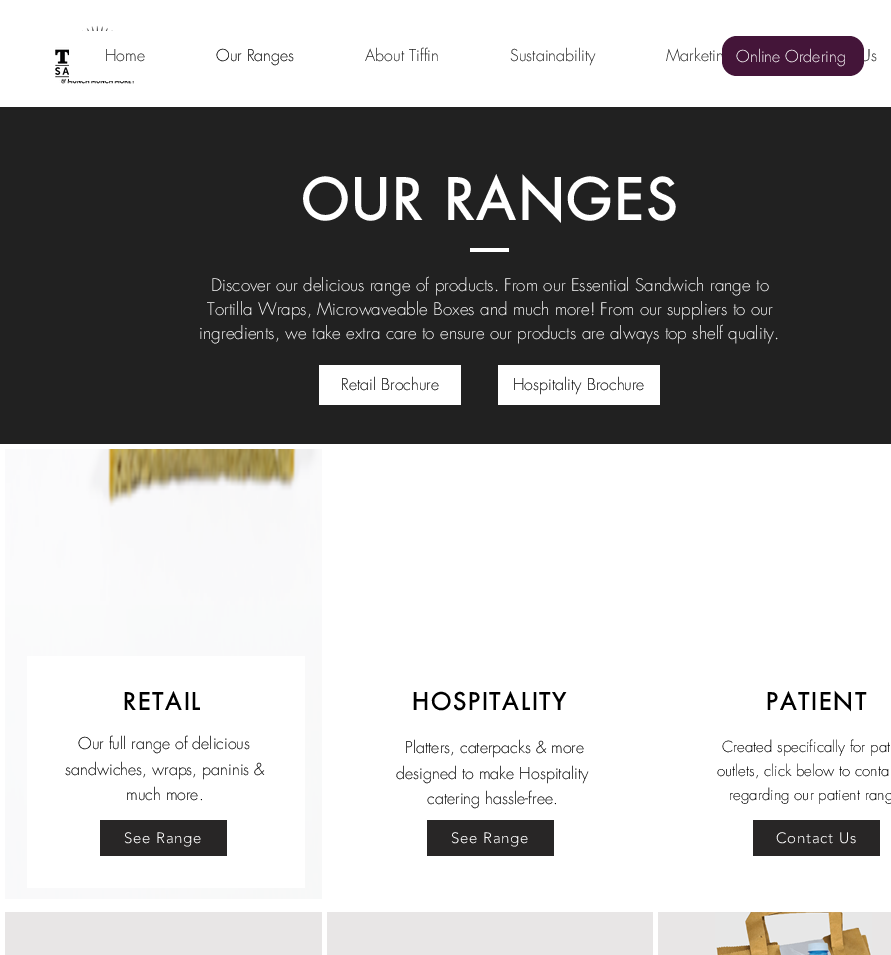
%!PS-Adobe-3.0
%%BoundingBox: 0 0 891 955
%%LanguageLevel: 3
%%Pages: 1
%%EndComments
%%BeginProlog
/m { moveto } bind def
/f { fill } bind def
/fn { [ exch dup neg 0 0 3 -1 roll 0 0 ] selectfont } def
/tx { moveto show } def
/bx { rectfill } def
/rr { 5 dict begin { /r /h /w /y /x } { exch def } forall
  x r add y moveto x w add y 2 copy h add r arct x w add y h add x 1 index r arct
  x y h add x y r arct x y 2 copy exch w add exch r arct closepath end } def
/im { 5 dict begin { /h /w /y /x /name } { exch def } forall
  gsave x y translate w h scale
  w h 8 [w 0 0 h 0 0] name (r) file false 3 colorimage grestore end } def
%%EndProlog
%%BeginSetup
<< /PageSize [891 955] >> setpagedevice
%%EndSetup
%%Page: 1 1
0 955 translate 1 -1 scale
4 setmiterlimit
1 setgray
0 0 891 955 bx
(image0.raw) 55 25 79 59 im
69 31 65 50 bx
/futura-Light 16 fn
0.129 setgray
(Home) 105 61 tx
0 setgray
(Our Ranges) 216 61 tx
0.129 setgray
(About Tiffin) 365 61 tx
(Sustainability) 510 61 tx
(Marketin) 666 61 tx
(Us) 860 61 tx
0.267 0.082 0.224 setrgbcolor
722 36 142 40 15 rr f
1 setgray
(Online Ordering) 736 62 tx
0.129 setgray
0 107 891 337 bx
/futura-Bold 55 fn
1 setgray
301 220 m 2.75 0 (OUR RANGES) ashow
470 248 39 4 bx
/futura-Light 17 fn
(Discover our delicious range of products. From our Essential Sandwich range to) 211 291 tx
(Tortilla Wraps, Microwaveable Boxes and much more! From our suppliers to our) 207 315 tx
(ingredients, we take extra care to ensure our products are always top shelf quality.) 199 339 tx
319 365 142 40 bx
/futura-Light 16 fn
0 setgray
(Retail Brochure) 341 390 tx
1 setgray
498 365 162 40 bx
0 setgray
(Hospitality Brochure) 513 390 tx
(image1.raw) 5 449 317 450 im
1 setgray
27 656 278 232 bx
/futura-Bold 23 fn
0 setgray
123 710 m 2.25 0 (RETAIL) ashow
/futura-Light 16 fn
(Our full range of delicious) 78 749 tx
(sandwiches, wraps, paninis &) 65 775 tx
(much more.) 126 800 tx
0.157 0.149 0.149 setrgbcolor
100 820 127 36 bx
/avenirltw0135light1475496-Light 15 fn
1 setgray
124 843 m 0.75 0 (See Range) ashow
/futura-Bold 23 fn
0 setgray
412 710 m 2.25 0 (HOSPITALITY) ashow
/futura-Light 16 fn
(Platters, caterpacks & more) 405 753 tx
(designed to make Hospitality) 396 779 tx
(catering hassle-free.) 427 804 tx
0.157 0.149 0.149 setrgbcolor
427 820 127 36 bx
/avenirltw0135light1475496-Light 15 fn
1 setgray
451 843 m 0.75 0 (See Range) ashow
/futura-Bold 23 fn
0 setgray
766 710 m 2.25 0 (PATIENT) ashow
/futura-Light 15 fn
(Created specifically for pat) 722 752 tx
(outlets, click below to conta) 717 776 tx
(regarding our patient rang) 729 800 tx
0.157 0.149 0.149 setrgbcolor
753 820 127 36 bx
/avenirltw0135light1475496-Light 15 fn
1 setgray
776 843 m 0.75 0 (Contact Us) ashow
0.91 0.902 0.902 setrgbcolor
5 912 317 43 bx
327 912 326 43 bx
658 912 233 43 bx
(image2.raw) 715 912 157 43 im
showpage
%%EOF
